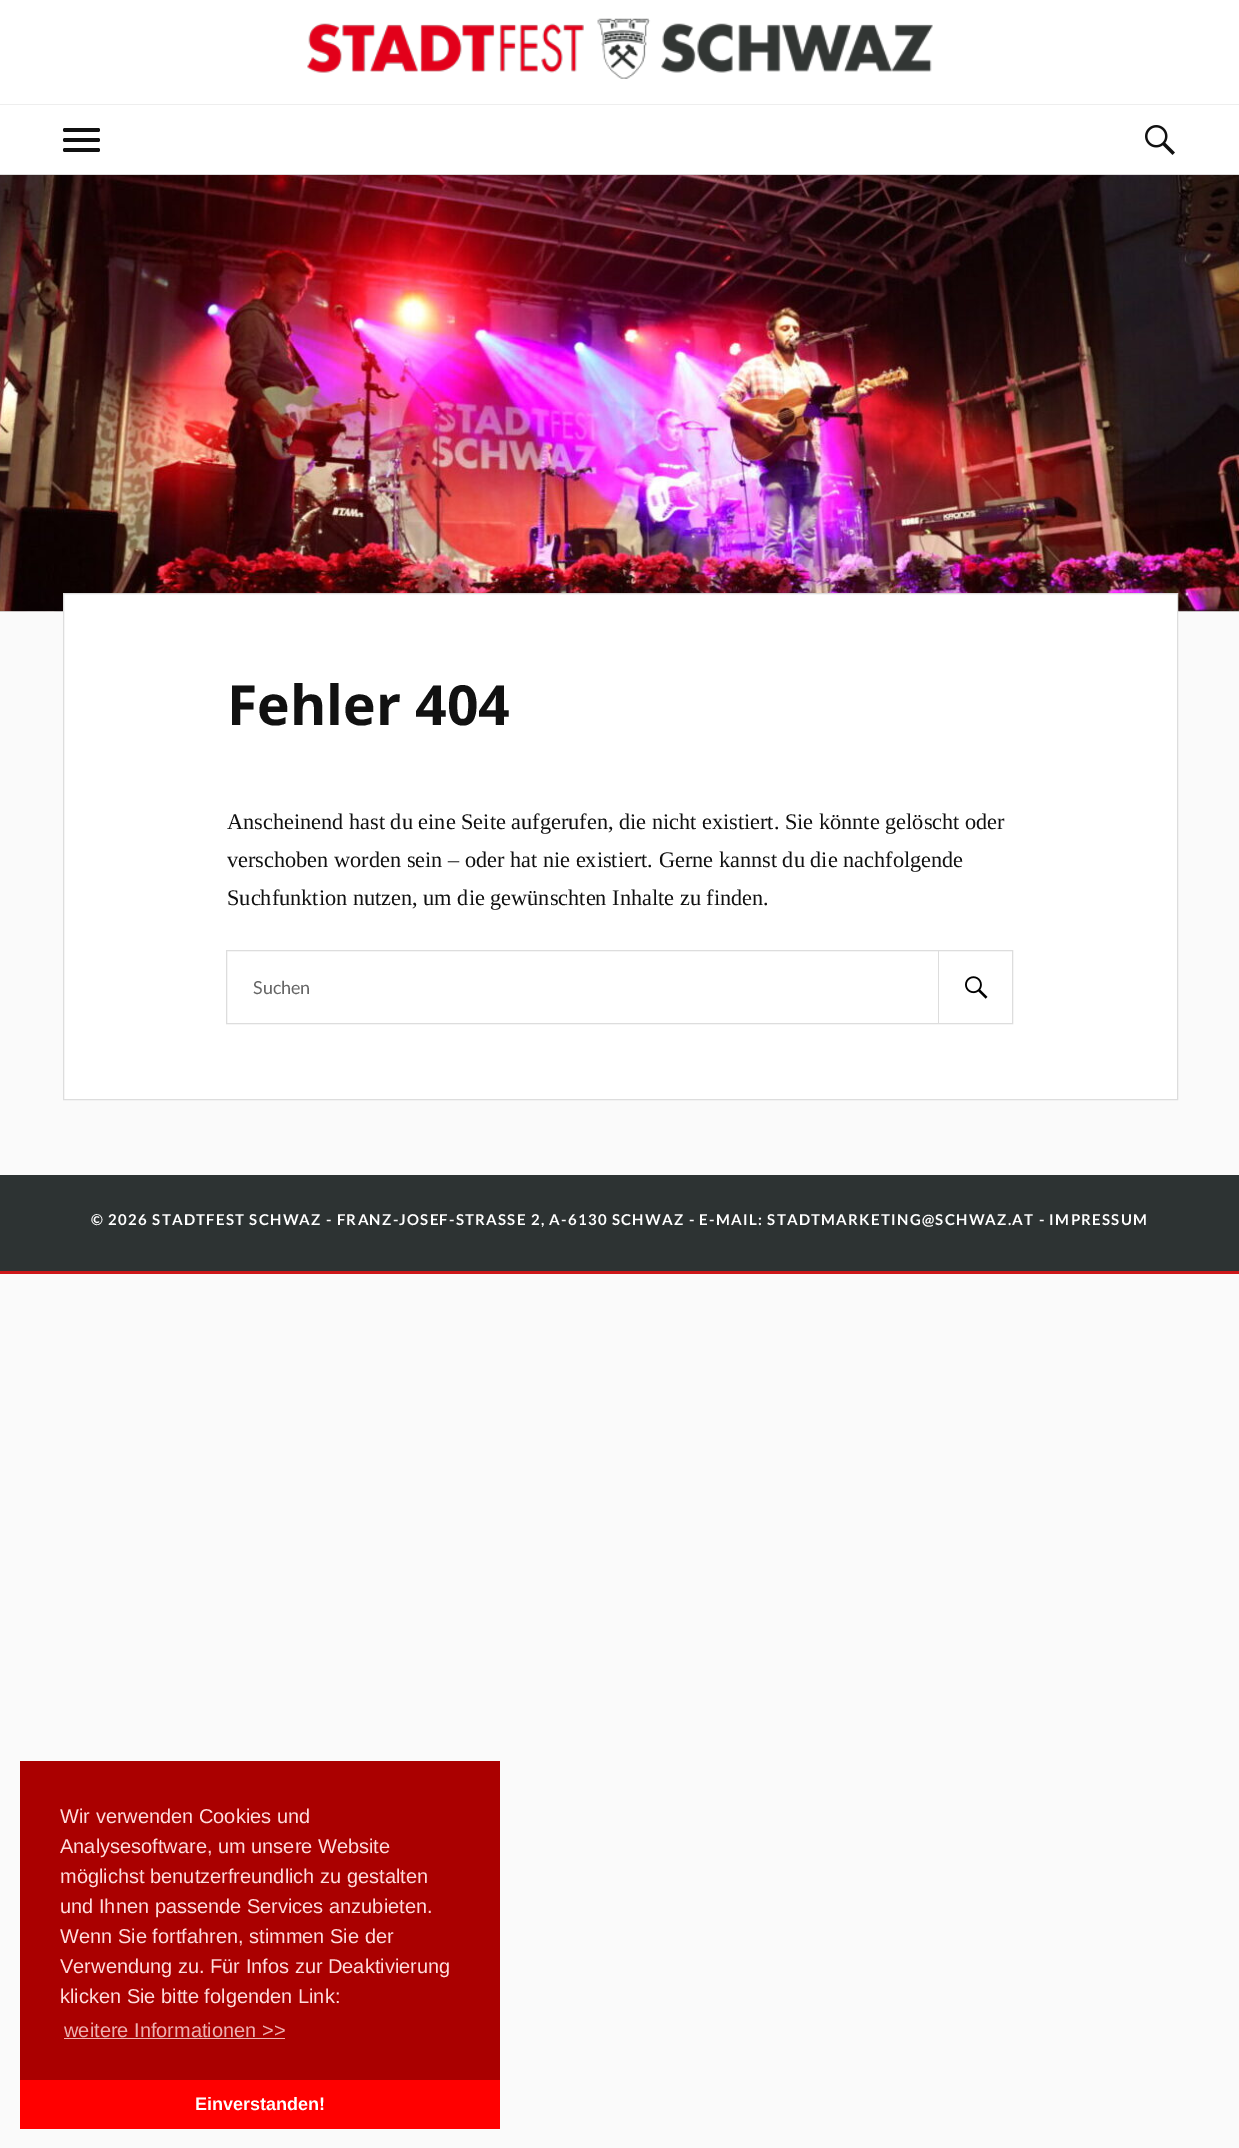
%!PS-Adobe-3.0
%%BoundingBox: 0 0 1239 2148
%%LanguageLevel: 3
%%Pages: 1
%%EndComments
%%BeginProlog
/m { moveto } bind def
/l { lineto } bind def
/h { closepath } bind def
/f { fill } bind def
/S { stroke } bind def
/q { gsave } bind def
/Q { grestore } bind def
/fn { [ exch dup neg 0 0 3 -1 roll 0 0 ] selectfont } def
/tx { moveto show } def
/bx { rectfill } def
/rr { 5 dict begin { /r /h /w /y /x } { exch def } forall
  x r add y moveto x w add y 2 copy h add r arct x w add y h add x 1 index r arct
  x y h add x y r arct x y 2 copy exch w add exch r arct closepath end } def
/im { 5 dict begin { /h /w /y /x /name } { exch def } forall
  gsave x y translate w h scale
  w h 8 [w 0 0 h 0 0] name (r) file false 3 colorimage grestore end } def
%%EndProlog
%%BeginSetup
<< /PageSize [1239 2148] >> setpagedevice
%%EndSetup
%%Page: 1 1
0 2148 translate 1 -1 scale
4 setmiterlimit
0.98 setgray
0 0 1239 2148 bx
1 setgray
0 0 1239 104 bx
(image0.raw) 307 18 626 61 im
0 105 1239 69 bx
0.933 setgray
0 104 1239 1 bx
0.067 setgray
63 128 37 4 2 rr f
63 138 37 4 2 rr f
63 148 37 4 2 rr f
(image1.raw) 1145 125 30 30 im
0.867 setgray
0 174 1239 1 bx
(image2.raw) 0 175 1239 437 im
1 setgray
63.5 593.5 m 1177.5 593.5 l 1177.5 1099.5 l 63.5 1099.5 l h q f Q
0.867 setgray
S
/OpenSans-Bold 55.25 fn
0.067 setgray
(Fehler 404) 227 725 tx
/LiberationSerif-Regular 22.3 fn
(Anscheinend hast du eine Seite aufgerufen, die nicht existiert. Sie könnte gelöscht oder) 227 829 tx
(verschoben worden sein – oder hat nie existiert. Gerne kannst du die nachfolgende) 227 867 tx
(Suchfunktion nutzen, um die gewünschten Inhalte zu finden.) 227 905 tx
0.867 setgray
226.5 950.5 786 73 rectstroke
/Lato-Regular 18 fn
0.4 setgray
(Suchen) 253 994 tx
0.867 setgray
938 950 1 74 bx
(image3.raw) 965 976 23 23 im
0.176 0.2 0.2 setrgbcolor
0 1175 1239 96 bx
0.804 0.09 0.098 setrgbcolor
0 1271 1239 3 bx
/Lato-Bold 15 fn
1 setgray
91 1225 m 1.25 0 (© 2026 STADTFEST SCHWAZ - FRANZ-JOSEF-STRASSE 2, A-6130 SCHWAZ - E-MAIL: STADTMARKETING@SCHWAZ.AT - IMPRESSUM) ashow
0.667 0 0 setrgbcolor
20 1761 480 319 bx
/LiberationSans-Regular 20 fn
1 0.867 0.867 setrgbcolor
(Wir verwenden Cookies und) 60 1823 tx
(Analysesoftware, um unsere Website) 60 1853 tx
(möglichst benutzerfreundlich zu gestalten) 60 1883 tx
(und Ihnen passende Services anzubieten.) 60 1913 tx
(Wenn Sie fortfahren, stimmen Sie der) 60 1943 tx
(Verwendung zu. Für Infos zur Deaktivierung) 60 1973 tx
(klicken Sie bitte folgenden Link:) 60 2003 tx
0.933 0.694 0.694 setrgbcolor
(weitere Informationen >>) 64 2037 tx
64 2038 221 1 bx
1 0 0 setrgbcolor
20 2080 480 49 bx
/LiberationSans-Bold 18 fn
1 setgray
(Einverstanden!) 195 2110 tx
showpage
%%EOF
